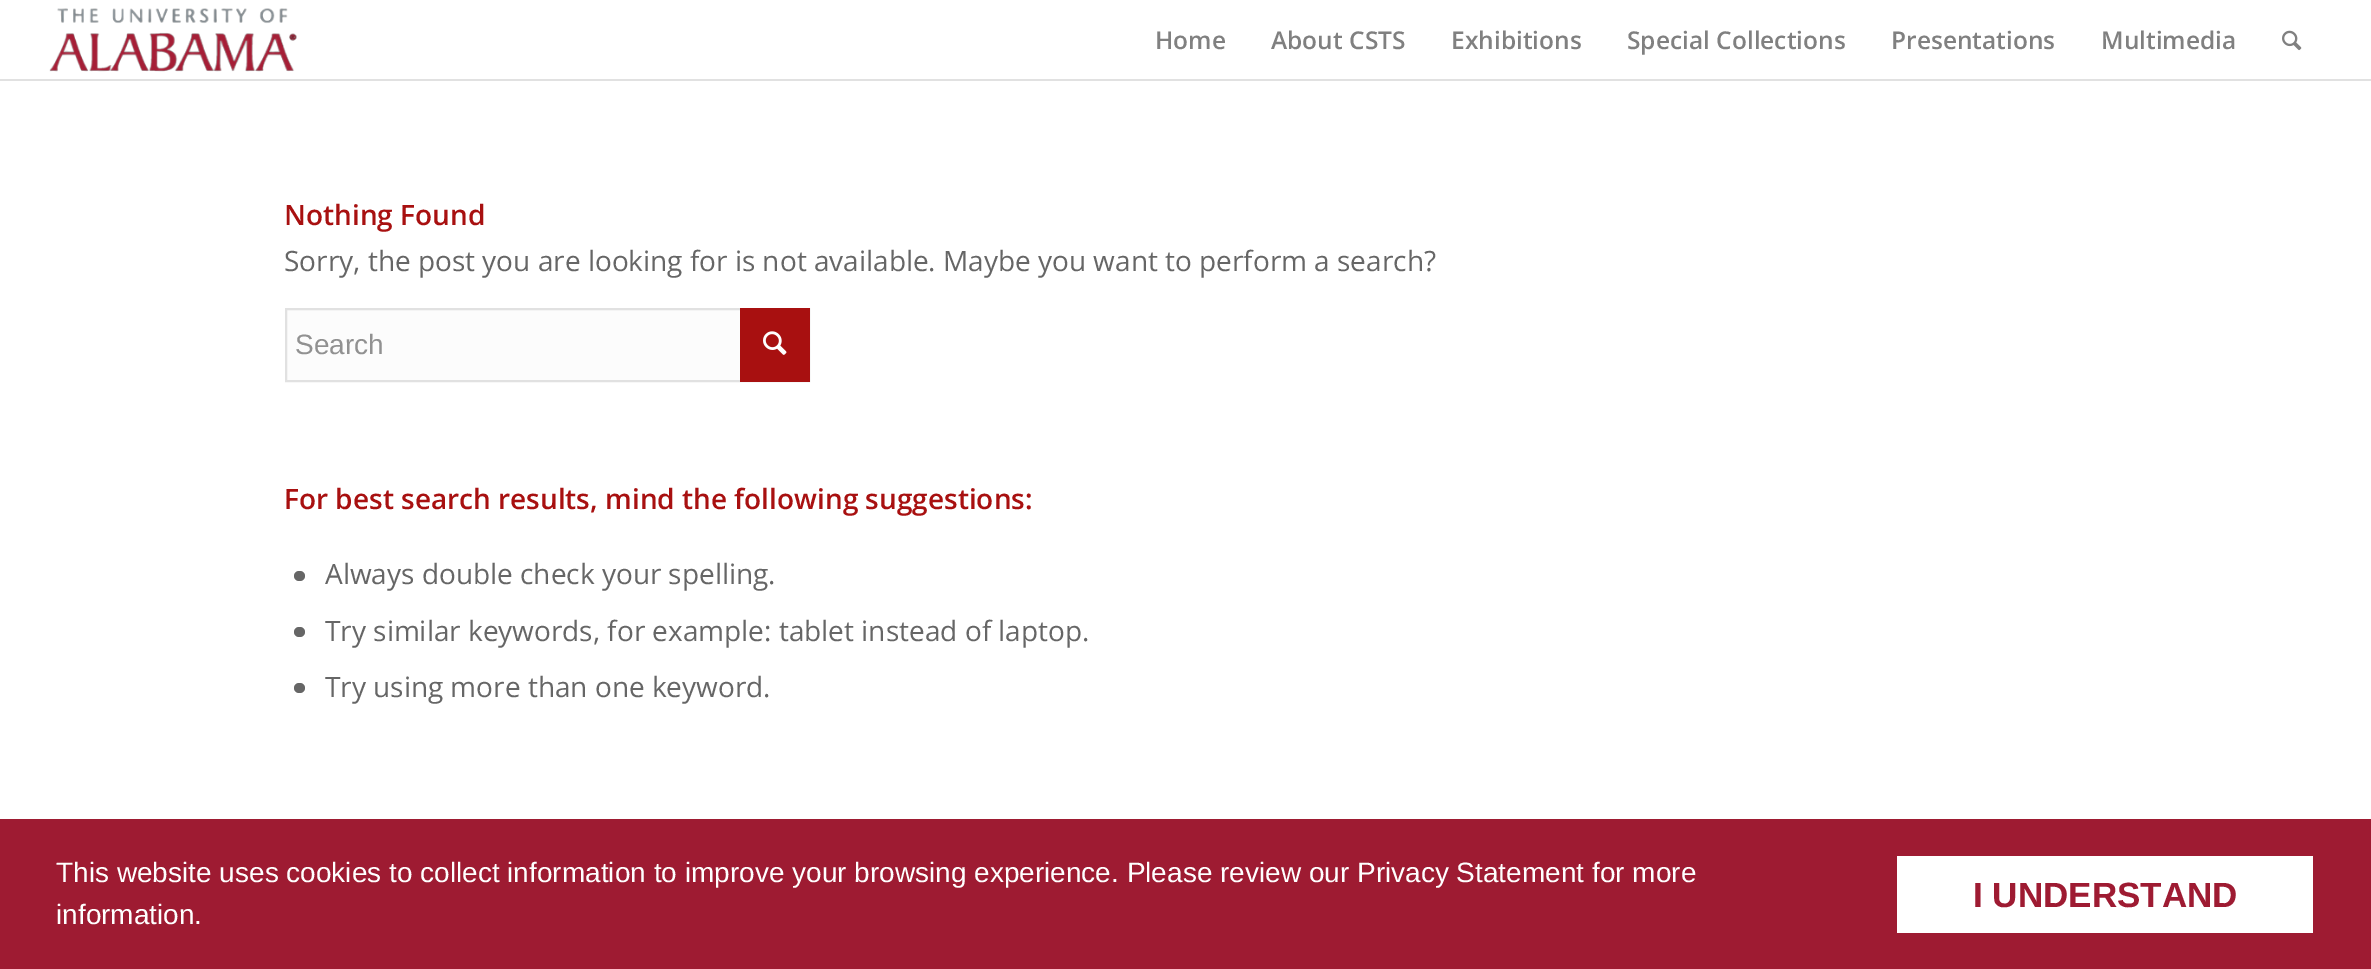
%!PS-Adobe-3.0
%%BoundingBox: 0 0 2371 969
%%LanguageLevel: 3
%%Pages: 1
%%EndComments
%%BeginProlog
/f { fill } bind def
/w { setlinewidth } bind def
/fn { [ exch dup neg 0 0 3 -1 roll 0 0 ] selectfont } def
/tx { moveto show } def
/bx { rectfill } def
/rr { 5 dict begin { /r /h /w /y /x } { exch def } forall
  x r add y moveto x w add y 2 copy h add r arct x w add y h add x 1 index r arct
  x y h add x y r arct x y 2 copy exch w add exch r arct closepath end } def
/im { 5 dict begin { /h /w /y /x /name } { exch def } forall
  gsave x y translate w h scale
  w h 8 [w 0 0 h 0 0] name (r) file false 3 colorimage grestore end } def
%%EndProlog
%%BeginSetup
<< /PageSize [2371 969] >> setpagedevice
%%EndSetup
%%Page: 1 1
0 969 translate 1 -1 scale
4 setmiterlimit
1 setgray
0 0 2371 969 bx
0.882 setgray
0 79 2371 2 bx
(image0.raw) 49 8 248 64 im
/OpenSans-SemiBold 24.5 fn
0.502 setgray
(Home) 1155 49 tx
(About CSTS) 1271 49 tx
(Exhibitions) 1451 49 tx
(Special Collections) 1627 49 tx
(Presentations) 1891 49 tx
(Multimedia) 2101 49 tx
(image1.raw) 2282 30 20 21 im
/OpenSans-SemiBold 28 fn
0.659 0.063 0.063 setrgbcolor
(Nothing Found) 284 225 tx
/OpenSans-Regular 28 fn
0.4 setgray
(Sorry, the post you are looking for is not available. Maybe you want to perform a search?) 284 271 tx
0.988 setgray
287 310 453 70 bx
0.882 setgray
2 w
286 309 523 72 rectstroke
/LiberationSans-Regular 28 fn
0.569 setgray
(Search) 295 354 tx
0.659 0.063 0.063 setrgbcolor
740 308 70 74 bx
(image2.raw) 763 331 24 24 im
/OpenSans-SemiBold 28 fn
(For best search results, mind the following suggestions:) 284 509 tx
0.4 setgray
294 571 11 10 5 rr f
/OpenSans-Regular 28 fn
(Always double check your spelling.) 325 584 tx
294 627 11 10 5 rr f
(Try similar keywords, for example: tablet instead of laptop.) 325 641 tx
294 683 11 10 5 rr f
(Try using more than one keyword.) 325 697 tx
0.62 0.106 0.196 setrgbcolor
0 819 2371 150 bx
/LiberationSans-Regular 28 fn
1 setgray
(This website uses cookies to collect information to improve your browsing experience. Please review our Privacy Statement for more) 56 882 tx
(information.) 56 924 tx
1897 856 416 77 bx
/LiberationSans-Bold 35 fn
0.62 0.106 0.196 setrgbcolor
(I UNDERSTAND) 1973 907 tx
showpage
%%EOF
